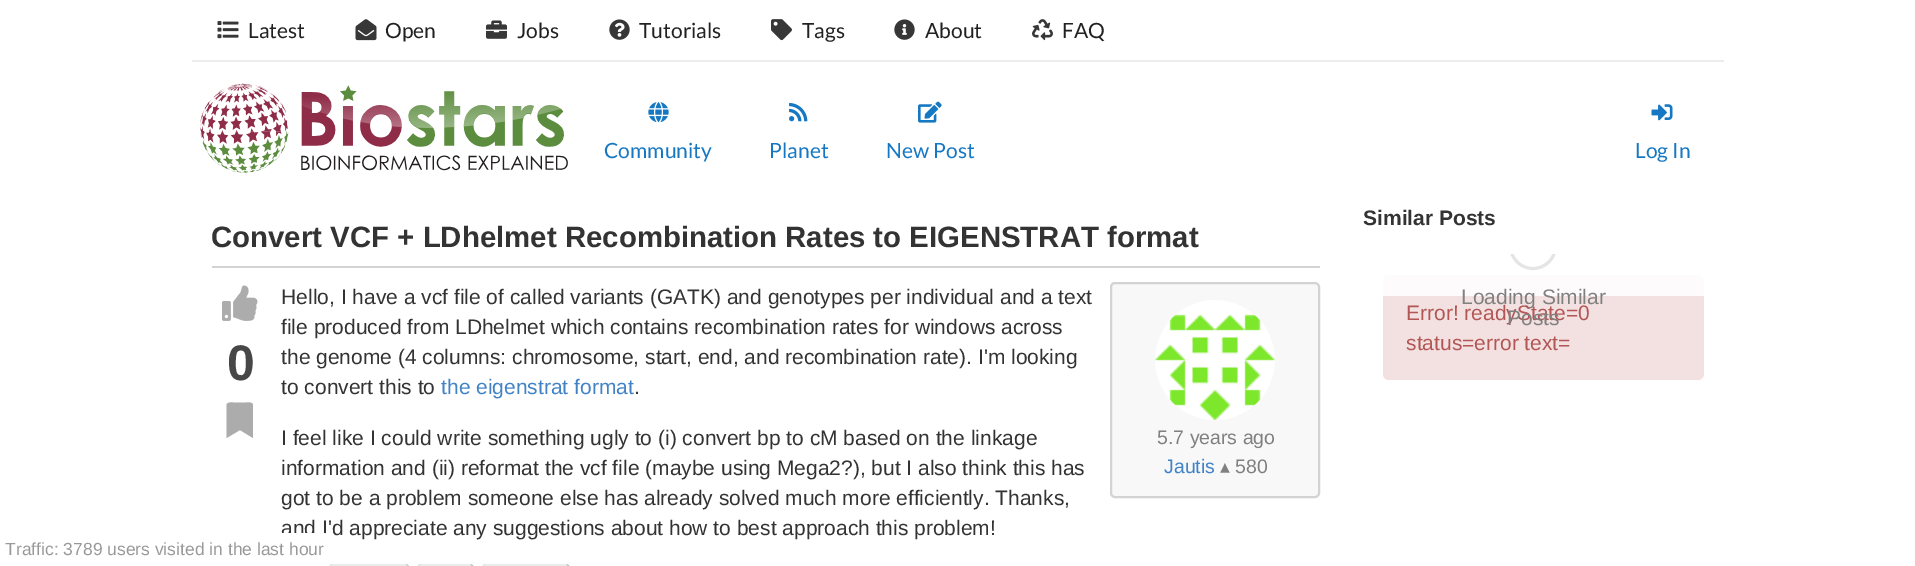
%!PS-Adobe-3.0
%%BoundingBox: 0 0 1915 566
%%LanguageLevel: 3
%%Pages: 1
%%EndComments
%%BeginProlog
/m { moveto } bind def
/l { lineto } bind def
/c { curveto } bind def
/h { closepath } bind def
/f { fill } bind def
/S { stroke } bind def
/q { gsave } bind def
/Q { grestore } bind def
/w { setlinewidth } bind def
/fn { [ exch dup neg 0 0 3 -1 roll 0 0 ] selectfont } def
/tx { moveto show } def
/bx { rectfill } def
/al { dup .setfillconstantalpha .setstrokeconstantalpha } def
/ci { newpath 0 360 arc closepath } def
/rr { 5 dict begin { /r /h /w /y /x } { exch def } forall
  x r add y moveto x w add y 2 copy h add r arct x w add y h add x 1 index r arct
  x y h add x y r arct x y 2 copy exch w add exch r arct closepath end } def
/im { 5 dict begin { /h /w /y /x /name } { exch def } forall
  gsave x y translate w h scale
  w h 8 [w 0 0 h 0 0] name (r) file false 3 colorimage grestore end } def
%%EndProlog
%%BeginSetup
<< /PageSize [1915 566] /PageUsesTransparency true >> setpagedevice
%%EndSetup
%%Page: 1 1
0 .pushpdf14devicefilter
0 566 translate 1 -1 scale
4 setmiterlimit
1 setgray
0 0 1915 566 bx
0.925 setgray
192 60 1532 2 bx
(image0.raw) 217 21 22 18 im
/Lato-Regular 21 fn
0.129 setgray
(Latest) 248 38 tx
(image1.raw) 355 19 22 22 im
(Open) 385 38 tx
(image2.raw) 486 20 21 19 im
(Jobs) 517 38 tx
(image3.raw) 609 19 21 21 im
(Tutorials) 639 38 tx
(image4.raw) 771 19 21 22 im
(Tags) 802 38 tx
(image5.raw) 894 19 21 21 im
(About) 925 38 tx
(image6.raw) 1032 19 21 22 im
(FAQ) 1062 38 tx
(image7.raw) 200 83 368 90 im
(image8.raw) 648 102 21 21 im
0.086 0.471 0.761 setrgbcolor
(Community) 604 158 tx
(image9.raw) 789 102 19 20 im
(Planet) 769 158 tx
(image10.raw) 918 101 24 22 im
(New Post) 886 158 tx
(image11.raw) 1651 104 22 17 im
(Log In) 1635 158 tx
0.827 setgray
212 266 1108 2 bx
/LiberationSans-Bold 29.4 fn
0.2 setgray
(Convert VCF + LDhelmet Recombination Rates to EIGENSTRAT format) 211 247 tx
(image12.raw) 222 285 36 36 im
/LiberationSans-Bold 50 fn
0.278 setgray
(0) 227 380 tx
0.675 setgray
226.5 438 m 226.5 405 l 227 402 231 402.5 233 402.5 c 246.5 402.5 l 249 402.5 252.5 402 253 405 c 253 438 l 240 430 l h f
/LiberationSans-Regular 21 fn
0.2 setgray
(Hello, I have a vcf file of called variants \(GATK\) and genotypes per individual and a text) 281 304 tx
(file produced from LDhelmet which contains recombination rates for windows across) 281 334 tx
(the genome \(4 columns: chromosome, start, end, and recombination rate\). I'm looking) 281 364 tx
(to convert this to) 281 394 tx
0.255 0.514 0.769 setrgbcolor
(the eigenstrat format) 441 394 tx
0.2 setgray
(.) 634 394 tx
(I feel like I could write something ugly to \(i\) convert bp to cM based on the linkage) 281 445 tx
(information and \(ii\) reformat the vcf file \(maybe using Mega2?\), but I also think this has) 281 475 tx
(got to be a problem someone else has already solved much more efficiently. Thanks,) 281 505 tx
(and I'd appreciate any suggestions about how to best approach this problem!) 281 535 tx
0.973 0.973 0.976 setrgbcolor
1111 283 208 214 4 rr q f Q
0.827 setgray
2 w
S
(image13.raw) 1155 300 120 120 im
/LiberationSans-Regular 19.5 fn
0.502 setgray
(5.7 years ago) 1157 444 tx
0.255 0.514 0.769 setrgbcolor
(Jautis) 1164 473 tx
/DejaVuSans-Regular 19.5 fn
0.502 setgray
(▴) 1220 473 tx
/LiberationSans-Regular 19.5 fn
(580) 1235 473 tx
0.925 setgray
329 564 81 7 5 rr f
0.733 setgray
333 564 m 405 564 l 407 564 410 566 410 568 c 410 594 l 410 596 407 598 405 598 c 333 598 l 331 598 328 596 328 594 c 328 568 l 328 566 331 564 333 564 c h 333 564 m 405 564 l 407 564 408 566 408 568 c 408 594 l 408 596 407 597 405 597 c 333 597 l 331 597 328 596 328 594 c 328 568 l 328 566 331 564 333 564 c h eofill
0.925 setgray
417 564 57 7 5 rr f
0.733 setgray
422 564 m 470 564 l 472 564 474 566 474 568 c 474 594 l 474 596 472 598 470 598 c 422 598 l 419 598 417 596 417 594 c 417 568 l 417 566 419 564 422 564 c h 422 564 m 470 564 l 471 564 472 566 472 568 c 472 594 l 472 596 471 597 470 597 c 422 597 l 419 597 417 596 417 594 c 417 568 l 417 566 419 564 422 564 c h eofill
0.925 setgray
482 564 88 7 5 rr f
0.733 setgray
486 564 m 566 564 l 568 564 570 566 570 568 c 570 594 l 570 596 568 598 566 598 c 486 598 l 484 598 482 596 482 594 c 482 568 l 482 566 484 564 486 564 c h 486 564 m 566 564 l 567 564 568 566 568 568 c 568 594 l 568 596 567 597 566 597 c 486 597 l 484 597 482 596 482 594 c 482 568 l 482 566 484 564 486 564 c h eofill
/LiberationSans-Bold 21 fn
0.2 setgray
(Similar Posts) 1363 225 tx
0.953 0.882 0.882 setrgbcolor
1383 275 321 105 6 rr f
0.85 al
1 setgray
1383 275 321 21 bx
q
1362 254 342 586 rectclip
1 al
0.898 setgray
3 w
1533 246 22.5 ci S
Q
/LiberationSans-Regular 21 fn
1 al
0.502 setgray
(Loading Similar) 1461 304 tx
0.698 0.341 0.333 setrgbcolor
(Error! readyState=0) 1406 320 tx
0.502 setgray
(Posts) 1507 325 tx
0.698 0.341 0.333 setrgbcolor
(status=error text=) 1406 350 tx
1 setgray
0 533 329 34 5 rr f
/LiberationSans-Regular 17.5 fn
0.6 setgray
(Traffic: 3789 users visited in the last hour) 5 555 tx
.poppdf14devicefilter showpage
%%EOF
